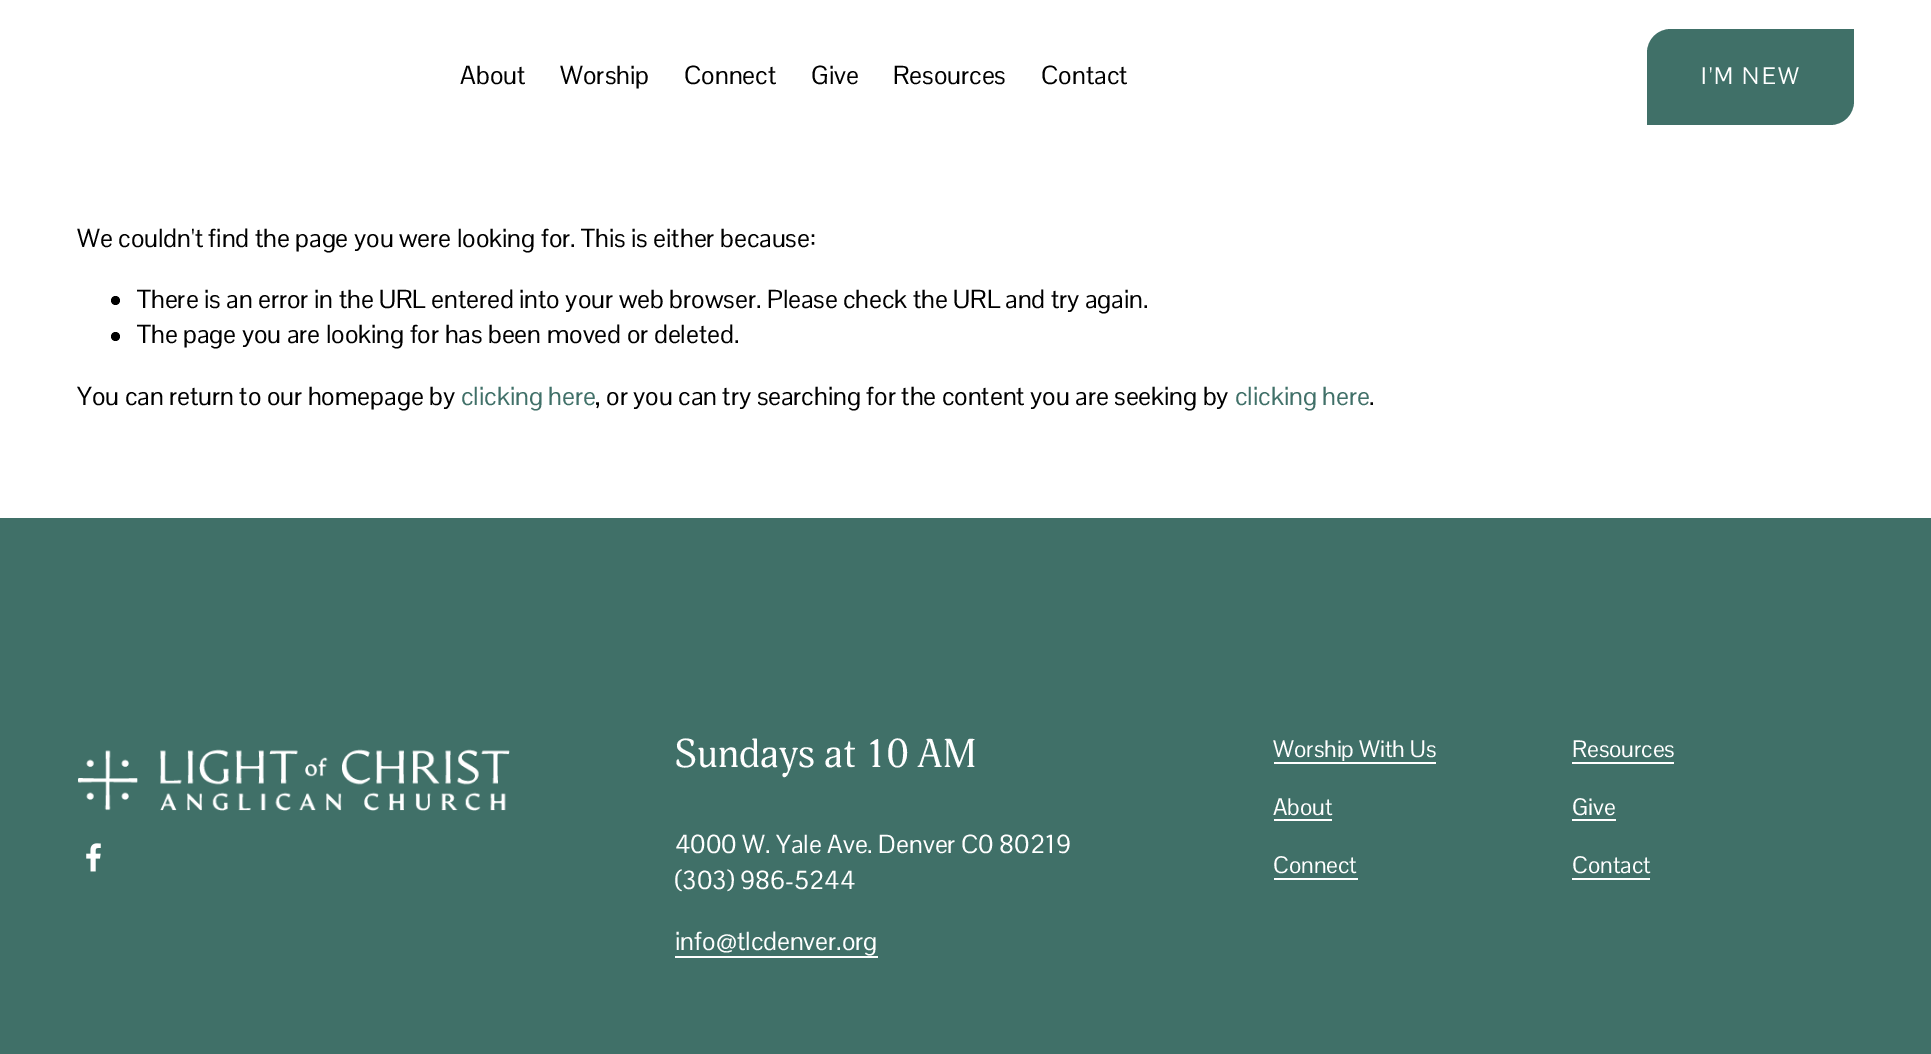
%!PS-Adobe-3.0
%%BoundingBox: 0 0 1931 1054
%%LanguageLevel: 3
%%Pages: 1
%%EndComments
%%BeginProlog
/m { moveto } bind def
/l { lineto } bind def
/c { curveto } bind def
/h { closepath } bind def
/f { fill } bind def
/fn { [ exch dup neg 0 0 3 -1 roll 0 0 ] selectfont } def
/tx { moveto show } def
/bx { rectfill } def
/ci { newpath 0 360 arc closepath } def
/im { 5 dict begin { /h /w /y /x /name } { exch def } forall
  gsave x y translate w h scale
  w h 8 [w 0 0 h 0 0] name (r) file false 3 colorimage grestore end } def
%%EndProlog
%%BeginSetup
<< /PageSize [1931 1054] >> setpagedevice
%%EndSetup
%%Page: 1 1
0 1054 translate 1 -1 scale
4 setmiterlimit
1 setgray
0 0 1931 1054 bx
/PontanoSans-Regular 25.5 fn
0 setgray
(About) 460 84 tx
(Worship) 560 84 tx
(Connect) 684 84 tx
(Give) 811 84 tx
(Resources) 893 84 tx
(Contact) 1041 84 tx
0.251 0.439 0.408 setrgbcolor
1671 29 m 1854 29 l 1854 101 l 1854 114.5 1843.5 125 1830 125 c 1647 125 l 1647 53 l 1647 39.5 1657.5 29 1671 29 c h f
/PontanoSans-Regular 23.25 fn
1 setgray
1701 84 m 2.25 0 (I'M NEW) ashow
/PontanoSans-Regular 25.5 fn
0 setgray
(We couldn't find the page you were looking for. This is either because:) 77 247 tx
115.5 300.5 4.5 ci f
(There is an error in the URL entered into your web browser. Please check the URL and try again.) 137 308 tx
115.5 336.5 4.5 ci f
(The page you are looking for has been moved or deleted.) 137 343 tx
(You can return to our homepage by) 77 405 tx
0.251 0.439 0.408 setrgbcolor
(clicking here) 461 405 tx
0 setgray
(, or you can try searching for the content you are seeking by) 595 405 tx
0.251 0.439 0.408 setrgbcolor
(clicking here) 1235 405 tx
0 setgray
(.) 1369 405 tx
0.251 0.439 0.408 setrgbcolor
0 518 1931 536 bx
(image0.raw) 78 749 432 62 im
/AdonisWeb-Regular 39.5 fn
1 setgray
(Sundays at 10 AM) 675 767 tx
/PontanoSans-Regular 25.5 fn
(4000 W. Yale Ave. Denver C0 80219) 675 853 tx
(\(303\) 986-5244) 675 889 tx
(info@tlcdenver.org) 675 950 tx
675 956 203 2 bx
/PontanoSans-Regular 23.25 fn
(Worship With Us) 1273 757 tx
1274 762 162 2 bx
(About) 1273 815 tx
1274 819 58 2 bx
(Connect) 1273 873 tx
1274 878 84 2 bx
(Resources) 1572 757 tx
1572 762 102 2 bx
(Give) 1572 815 tx
1572 819 44 2 bx
(Contact) 1572 873 tx
1572 878 78 2 bx
(image1.raw) 86 843 15 29 im
showpage
%%EOF
